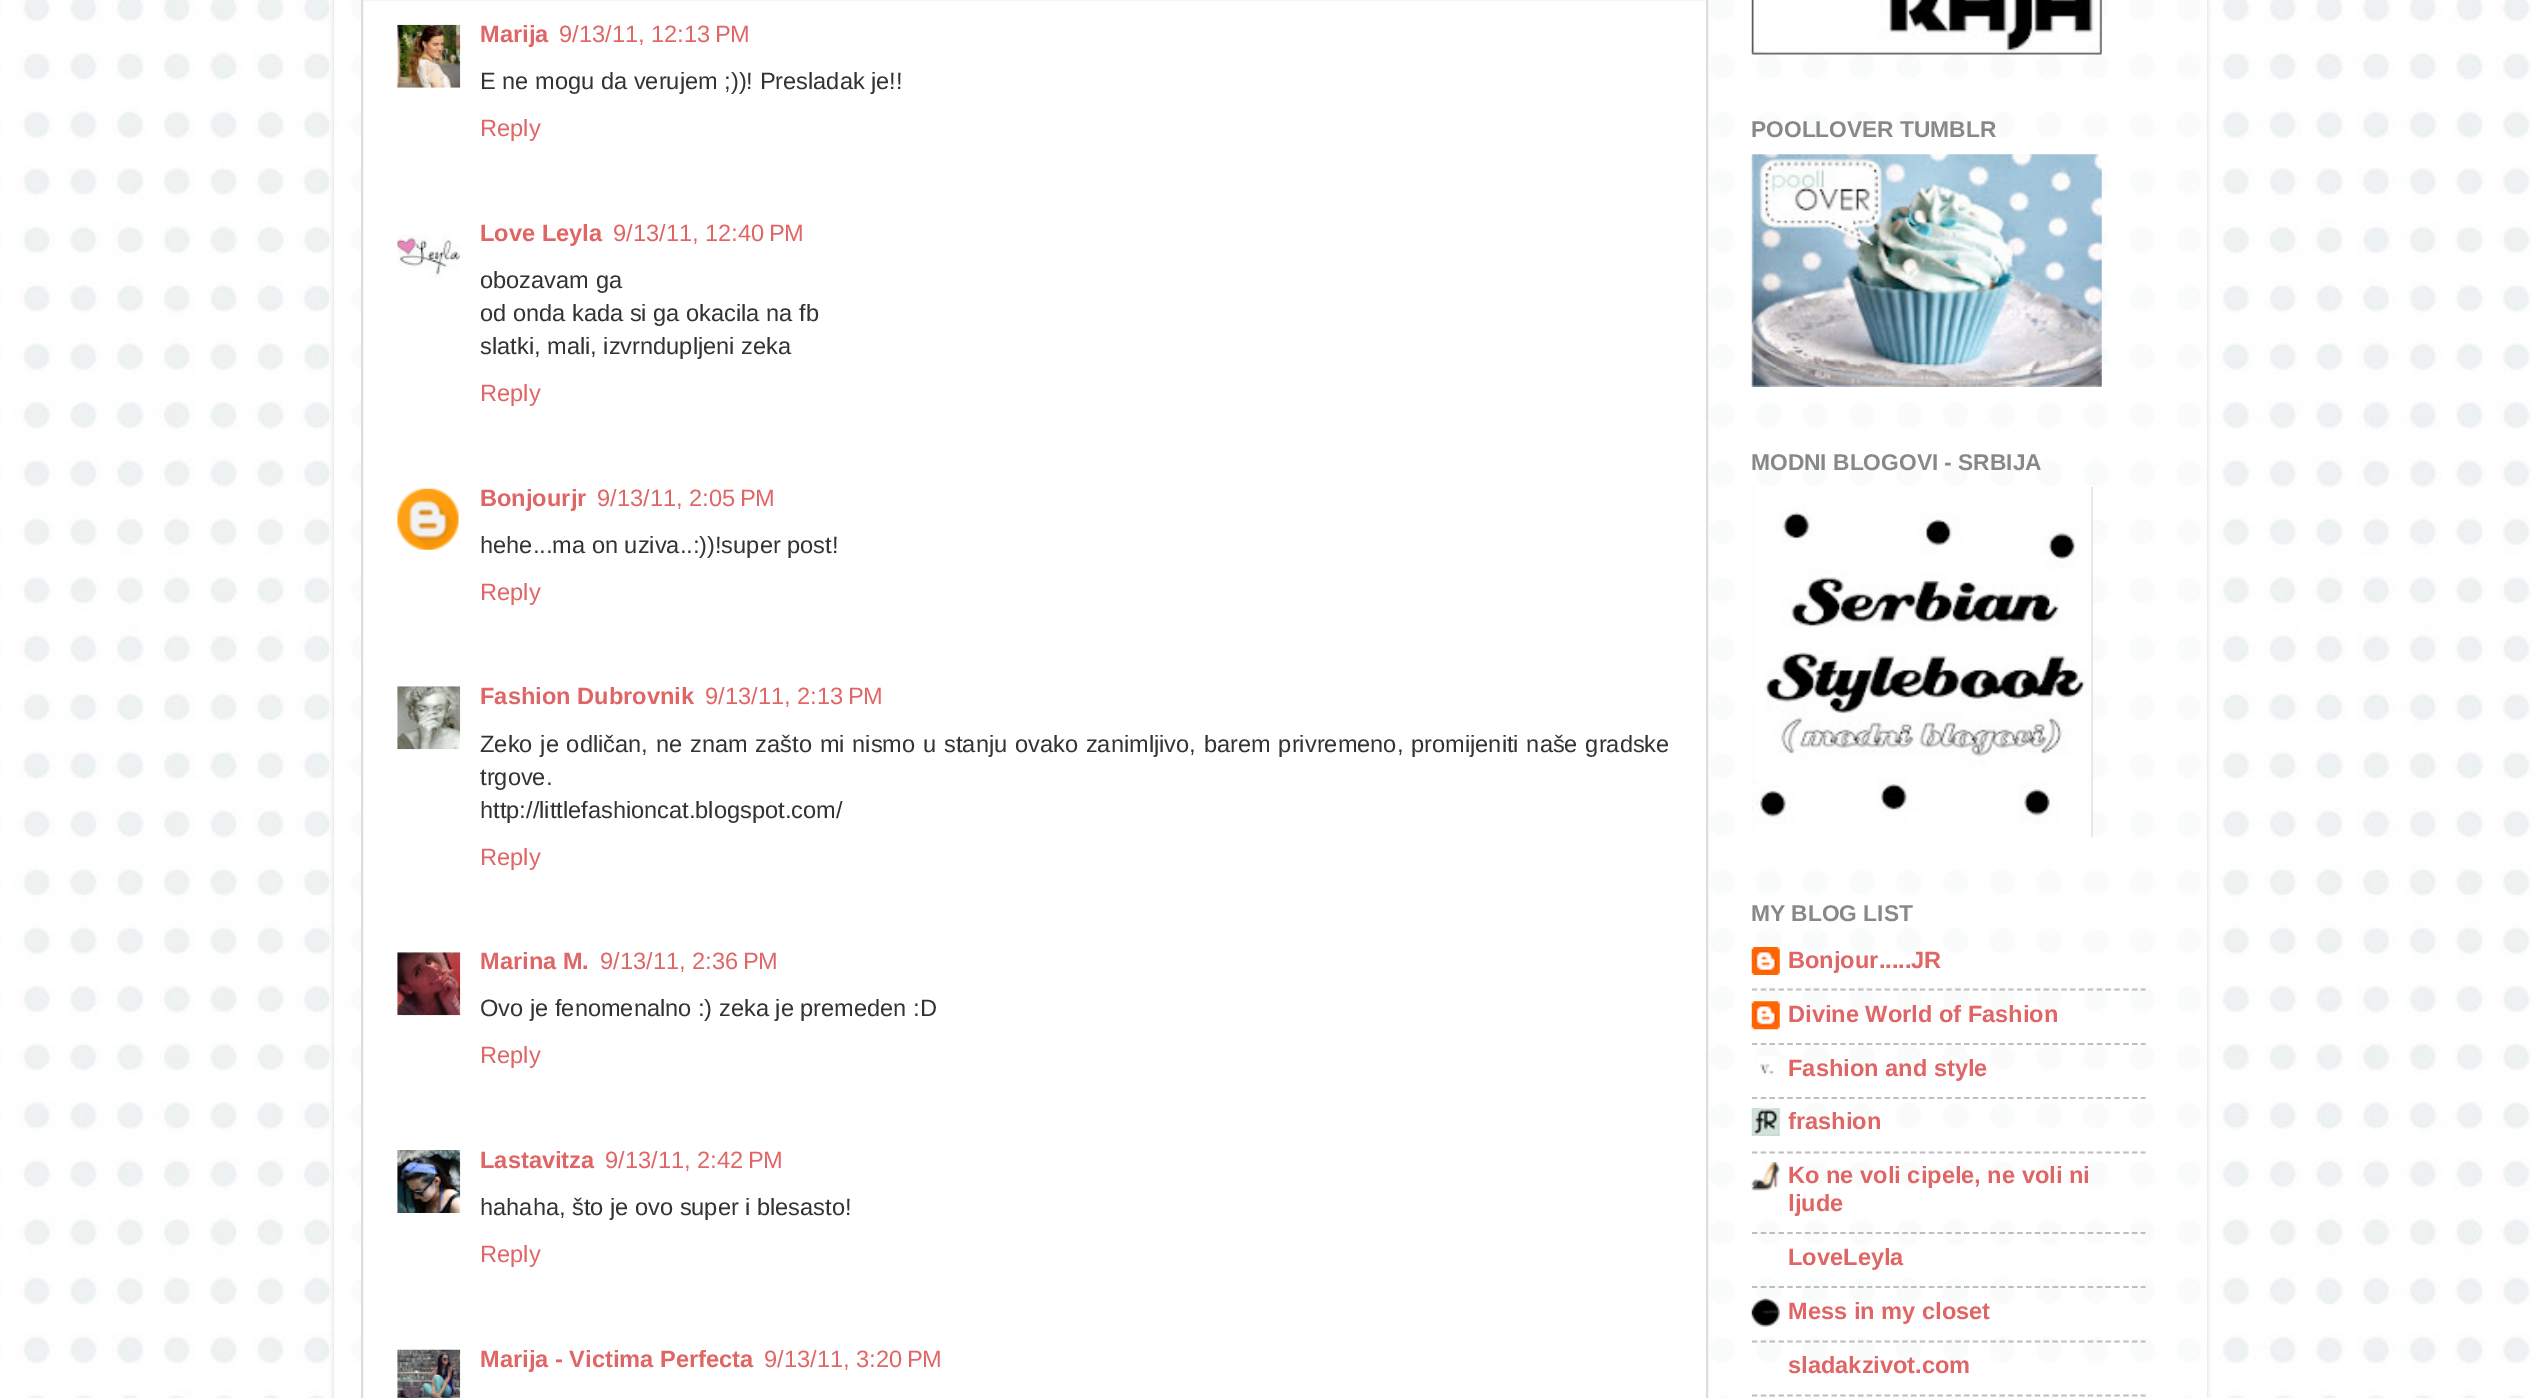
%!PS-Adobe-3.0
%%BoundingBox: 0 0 2538 1398
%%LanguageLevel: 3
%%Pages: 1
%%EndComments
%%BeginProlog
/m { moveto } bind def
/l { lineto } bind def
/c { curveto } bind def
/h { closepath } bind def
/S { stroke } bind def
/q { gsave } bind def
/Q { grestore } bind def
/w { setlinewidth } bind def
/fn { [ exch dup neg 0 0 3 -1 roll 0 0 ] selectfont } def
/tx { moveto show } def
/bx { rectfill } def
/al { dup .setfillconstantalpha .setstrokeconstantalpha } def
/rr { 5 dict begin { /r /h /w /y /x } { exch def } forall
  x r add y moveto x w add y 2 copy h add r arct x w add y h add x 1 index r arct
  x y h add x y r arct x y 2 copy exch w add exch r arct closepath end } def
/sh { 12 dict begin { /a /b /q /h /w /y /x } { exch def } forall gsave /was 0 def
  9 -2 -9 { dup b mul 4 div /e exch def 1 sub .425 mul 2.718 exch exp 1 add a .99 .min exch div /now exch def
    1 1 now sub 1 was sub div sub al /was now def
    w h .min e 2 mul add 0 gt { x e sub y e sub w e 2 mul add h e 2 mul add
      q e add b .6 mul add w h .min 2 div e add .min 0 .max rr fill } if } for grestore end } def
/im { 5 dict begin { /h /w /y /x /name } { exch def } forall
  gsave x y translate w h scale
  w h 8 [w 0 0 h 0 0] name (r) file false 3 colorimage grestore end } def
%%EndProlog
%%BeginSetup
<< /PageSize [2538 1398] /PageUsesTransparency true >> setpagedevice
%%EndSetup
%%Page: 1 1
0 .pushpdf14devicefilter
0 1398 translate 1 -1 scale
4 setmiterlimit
1 setgray
0 0 2538 1398 bx
(image0.raw) 0 0 2532 1398 im
q
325 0 m 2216 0 l 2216 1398 l 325 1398 l h 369 -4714 m 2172 -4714 l 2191.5 -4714 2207 -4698.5 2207 -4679 c 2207 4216 l 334 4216 l 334 -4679 l 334 -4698.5 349.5 -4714 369 -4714 c h eoclip newpath
0 setgray
334 -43 1873 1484 35 2.5 0.15 sh
Q
0.7 al
350 0 1853 1398 bx
1 al
363 0 1322 1398 bx
0.867 setgray
2 w
362 -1 1345 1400 rectstroke
(image1.raw) 397 24 64 64 im
/LiberationSans-Bold 23.62 fn
0.878 0.4 0.4 setrgbcolor
(Marija) 480 42 tx
/LiberationSans-Regular 23.62 fn
(9/13/11, 12:13 PM) 559 42 tx
0.2 setgray
(E ne mogu da verujem ;\)\)! Presladak je!!) 480 89 tx
0.878 0.4 0.4 setrgbcolor
(Reply) 480 136 tx
(image2.raw) 397 234 64 44 im
/LiberationSans-Bold 23.62 fn
(Love Leyla) 480 241 tx
/LiberationSans-Regular 23.62 fn
(9/13/11, 12:40 PM) 613 241 tx
0.2 setgray
(obozavam ga) 480 288 tx
(od onda kada si ga okacila na fb) 480 321 tx
(slatki, mali, izvrndupljeni zeka) 480 354 tx
0.878 0.4 0.4 setrgbcolor
(Reply) 480 401 tx
(image3.raw) 397 488 62 62 im
/LiberationSans-Bold 23.62 fn
(Bonjourjr) 480 506 tx
/LiberationSans-Regular 23.62 fn
(9/13/11, 2:05 PM) 597 506 tx
0.2 setgray
(hehe...ma on uziva..:\)\)!super post!) 480 553 tx
0.878 0.4 0.4 setrgbcolor
(Reply) 480 600 tx
(image4.raw) 397 686 64 64 im
/LiberationSans-Bold 23.62 fn
(Fashion Dubrovnik) 480 704 tx
/LiberationSans-Regular 23.62 fn
(9/13/11, 2:13 PM) 705 704 tx
0.2 setgray
480 752 m 1.25 0 32 (Zeko je odličan, ne znam zašto mi nismo u stanju ovako zanimljivo, barem privremeno, promijeniti naše gradske) widthshow
(trgove.) 480 785 tx
(http://littlefashioncat.blogspot.com/) 480 818 tx
0.878 0.4 0.4 setrgbcolor
(Reply) 480 865 tx
(image5.raw) 397 952 64 64 im
/LiberationSans-Bold 23.62 fn
(Marina M.) 480 969 tx
/LiberationSans-Regular 23.62 fn
(9/13/11, 2:36 PM) 600 969 tx
0.2 setgray
(Ovo je fenomenalno :\) zeka je premeden :D) 480 1016 tx
0.878 0.4 0.4 setrgbcolor
(Reply) 480 1063 tx
(image6.raw) 397 1150 64 63 im
/LiberationSans-Bold 23.62 fn
(Lastavitza) 480 1168 tx
/LiberationSans-Regular 23.62 fn
(9/13/11, 2:42 PM) 605 1168 tx
0.2 setgray
(hahaha, što je ovo super i blesasto!) 480 1215 tx
0.878 0.4 0.4 setrgbcolor
(Reply) 480 1262 tx
(image7.raw) 397 1349 64 49 im
/LiberationSans-Bold 23.62 fn
(Marija - Victima Perfecta) 480 1367 tx
/LiberationSans-Regular 23.62 fn
(9/13/11, 3:20 PM) 764 1367 tx
(image8.raw) 1751 0 351 55 im
/LiberationSans-Bold 22.75 fn
0.533 setgray
(POOLLOVER TUMBLR) 1751 137 tx
(image9.raw) 1751 154 351 233 im
(MODNI BLOGOVI - SRBIJA) 1751 470 tx
(image10.raw) 1752 486 341 351 im
(MY BLOG LIST) 1751 921 tx
(image11.raw) 1751 947 29 28 im
/LiberationSans-Bold 23.62 fn
0.878 0.4 0.4 setrgbcolor
(Bonjour.....JR) 1788 968 tx
0.5 al
0.502 setgray
1.8 w
[5.25 3.59] 0 setdash
1752 989.5 m 2145.5 989.5 l S
1 al
(image12.raw) 1751 1001 29 29 im
0.878 0.4 0.4 setrgbcolor
(Divine World of Fashion) 1788 1022 tx
0.749 setgray
1752 1044 m 2145.5 1044 l S
(image13.raw) 1757 1056 22 19 im
0.878 0.4 0.4 setrgbcolor
(Fashion and style) 1788 1076 tx
0.749 setgray
1752 1098 m 2145.5 1098 l S
(image14.raw) 1751 1108 29 28 im
0.878 0.4 0.4 setrgbcolor
(frashion) 1788 1129 tx
0.749 setgray
1752 1152.5 m 2145.5 1152.5 l S
(image15.raw) 1751 1162 29 29 im
0.878 0.4 0.4 setrgbcolor
(Ko ne voli cipele, ne voli ni) 1788 1183 tx
(ljude) 1788 1211 tx
0.5 al
0.502 setgray
1752 1233 m 2145.5 1233 l S
1 al
0.878 0.4 0.4 setrgbcolor
(LoveLeyla) 1788 1265 tx
0.5 al
0.502 setgray
1752 1287 m 2145.5 1287 l S
1 al
(image16.raw) 1751 1298 29 29 im
0.878 0.4 0.4 setrgbcolor
(Mess in my closet) 1788 1319 tx
0.5 al
0.502 setgray
1752 1341.5 m 2145.5 1341.5 l S
1 al
0.878 0.4 0.4 setrgbcolor
(sladakzivot.com) 1788 1373 tx
0.5 al
0.502 setgray
1752 1395.5 m 2145.5 1395.5 l S
.poppdf14devicefilter showpage
%%EOF
